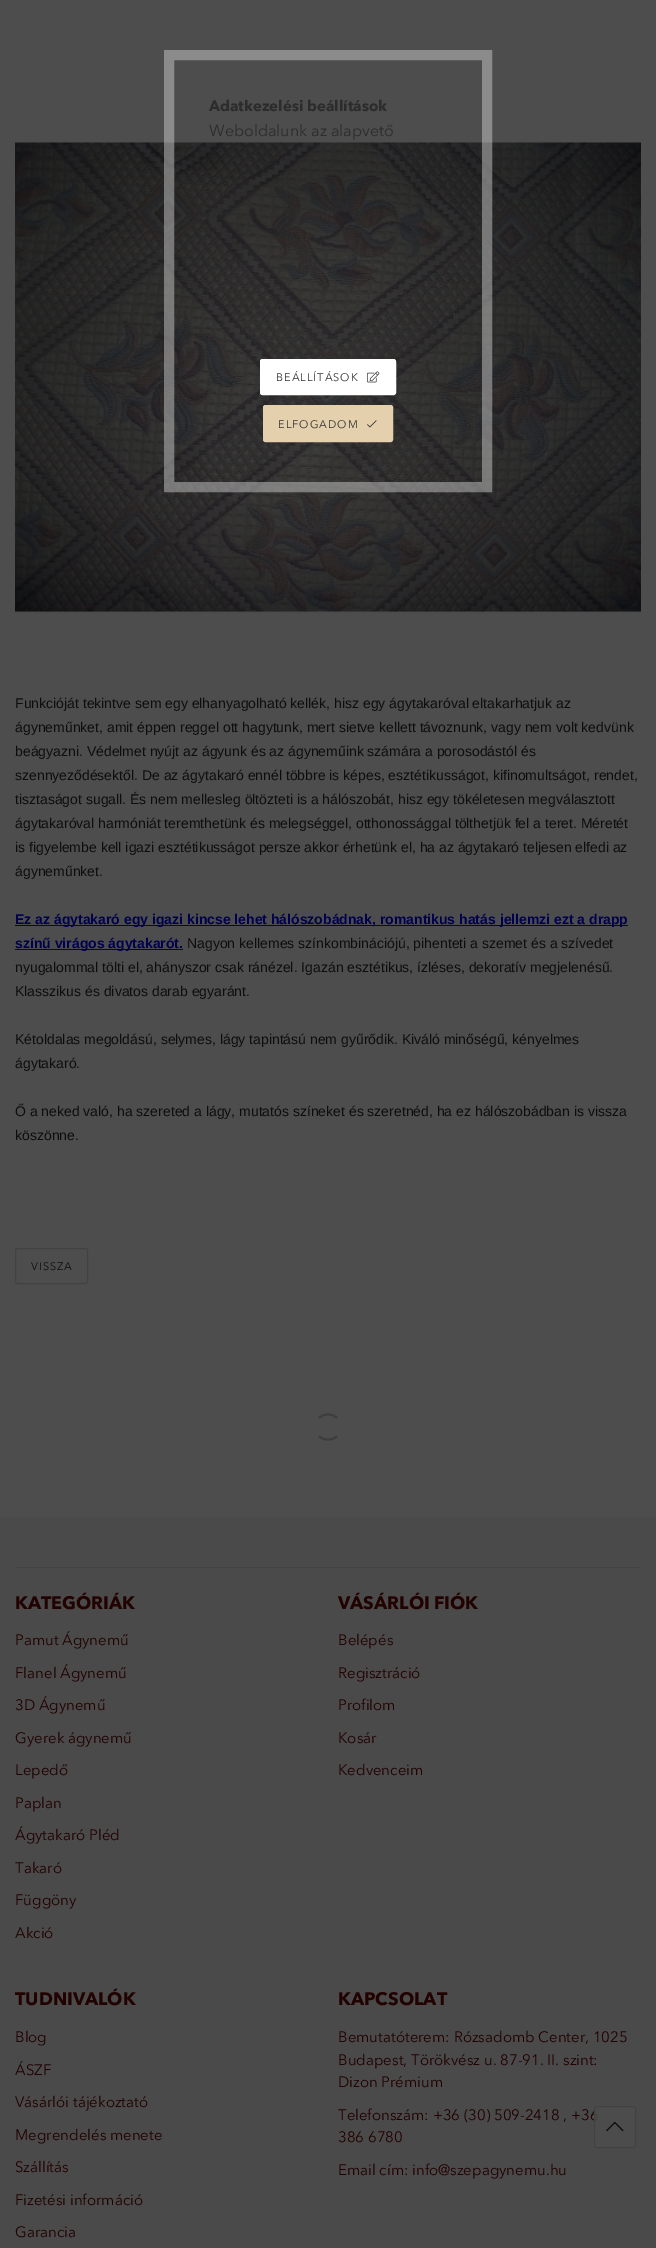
%!PS-Adobe-3.0
%%BoundingBox: 0 0 656 2248
%%LanguageLevel: 3
%%Pages: 1
%%EndComments
%%BeginProlog
/m { moveto } bind def
/c { curveto } bind def
/f { fill } bind def
/S { stroke } bind def
/q { gsave } bind def
/Q { grestore } bind def
/w { setlinewidth } bind def
/fn { [ exch dup neg 0 0 3 -1 roll 0 0 ] selectfont } def
/tx { moveto show } def
/bx { rectfill } def
/al { dup .setfillconstantalpha .setstrokeconstantalpha } def
/rr { 5 dict begin { /r /h /w /y /x } { exch def } forall
  x r add y moveto x w add y 2 copy h add r arct x w add y h add x 1 index r arct
  x y h add x y r arct x y 2 copy exch w add exch r arct closepath end } def
/im { 5 dict begin { /h /w /y /x /name } { exch def } forall
  gsave x y translate w h scale
  w h 8 [w 0 0 h 0 0] name (r) file false 3 colorimage grestore end } def
%%EndProlog
%%BeginSetup
<< /PageSize [656 2248] /PageUsesTransparency true >> setpagedevice
%%EndSetup
%%Page: 1 1
0 .pushpdf14devicefilter
0 2248 translate 1 -1 scale
4 setmiterlimit
0.302 setgray
0 0 656 2248 bx
(image2.raw) 15 142 626 472 im
0.5 al
0.784 setgray
10 w
169 55 318 432 rectstroke
/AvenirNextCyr-Bold 15 fn
1 al
0.173 setgray
(Adatkezelési beállítások) 209 111 tx
/AvenirNextCyr-Regular 16 fn
(Weboldalunk az alapvető) 209 136 tx
1 setgray
260.5 359.5 135 35 2 rr q f Q
1 w
S
/AvenirNextCyr-Regular 11 fn
0.2 setgray
276 381 m 1 0 (BEÁLLÍTÁSOK) ashow
(image0.raw) 367 371 13 12 im
0.898 0.816 0.678 setrgbcolor
263.5 405.5 129 36 2 rr q f Q
S
0.2 setgray
278 428 m 1 0 (ELFOGADOM) ashow
(image1.raw) 367 420 10 8 im
/LiberationSans-Regular 14 fn
0.051 setgray
(Funkcióját tekintve sem egy elhanyagolható kellék, hisz egy ágytakaróval eltakarhatjuk az) 15 708 tx
(ágyneműnket, amit éppen reggel ott hagytunk, mert sietve kellett távoznunk, vagy nem volt kedvünk) 15 732 tx
(beágyazni. Védelmet nyújt az ágyunk és az ágyneműink számára a porosodástól és) 15 756 tx
(szennyeződésektől. De az ágytakaró ennél többre is képes, esztétikusságot, kifinomultságot, rendet,) 15 780 tx
(tisztaságot sugall. És nem mellesleg öltözteti is a hálószobát, hisz egy tökéletesen megválasztott) 15 804 tx
(ágytakaróval harmóniát teremthetünk és melegséggel, otthonossággal tölthetjük fel a teret. Méretét) 15 828 tx
(is figyelembe kell igazi esztétikusságot persze akkor érhetünk el, ha az ágytakaró teljesen elfedi az) 15 852 tx
(ágyneműnket.) 15 876 tx
15 925 613 1 bx
/LiberationSans-Bold 14 fn
0 0 0.302 setrgbcolor
(Ez az ágytakaró egy igazi kincse lehet hálószobádnak, romantikus hatás jellemzi ezt a drapp) 15 924 tx
0.051 setgray
15 949 168 1 bx
0 0 0.302 setrgbcolor
(színű virágos ágytakarót.) 15 948 tx
/LiberationSans-Regular 14 fn
0.051 setgray
(Nagyon kellemes színkombinációjú, pihenteti a szemet és a szívedet) 187 948 tx
(nyugalommal tölti el, ahányszor csak ránézel. Igazán esztétikus, ízléses, dekoratív megjelenésű.) 15 972 tx
(Klasszikus és divatos darab egyaránt.) 15 996 tx
(Kétoldalas megoldású, selymes, lágy tapintású nem gyűrődik. Kiváló minőségű, kényelmes) 15 1044 tx
(ágytakaró.) 15 1068 tx
(Ő a neked való, ha szereted a lágy, mutatós színeket és szeretnéd, ha ez hálószobádban is vissza) 15 1116 tx
(köszönne.) 15 1140 tx
0.259 setgray
15.5 1248.5 72 35 2 rr S
/AvenirNextCyr-Regular 11 fn
0.051 setgray
31 1270 m 1 0 (VISSZA) ashow
0.239 setgray
2 w
319 1418 m 324 1413 332 1413 337 1418 c 337 1436 m 332 1441 324 1441 319 1436 c S
0.29 setgray
0 1517 656 731 bx
0.259 setgray
15 1567 626 1 bx
/AvenirNextCyr-Bold 18 fn
0.129 0.008 0 setrgbcolor
(KATEGÓRIÁK) 15 1609 tx
/AvenirNextCyr-Regular 15 fn
(Pamut Ágynemű) 15 1645 tx
(Flanel Ágynemű) 15 1678 tx
(3D Ágynemű) 15 1710 tx
(Gyerek ágynemű) 15 1743 tx
(Lepedő) 15 1775 tx
(Paplan) 15 1808 tx
(Ágytakaró Pléd) 15 1840 tx
(Takaró) 15 1873 tx
(Függöny) 15 1905 tx
(Akció) 15 1938 tx
/AvenirNextCyr-Bold 18 fn
(VÁSÁRLÓI FIÓK) 338 1609 tx
/AvenirNextCyr-Regular 15 fn
(Belépés) 338 1645 tx
(Regisztráció) 338 1678 tx
(Profilom) 338 1710 tx
(Kosár) 338 1743 tx
(Kedvenceim) 338 1775 tx
/AvenirNextCyr-Bold 18 fn
(TUDNIVALÓK) 15 2005 tx
/AvenirNextCyr-Regular 15 fn
(Blog) 15 2042 tx
(ÁSZF) 15 2075 tx
(Vásárlói tájékoztató) 15 2107 tx
(Megrendelés menete) 15 2140 tx
(Szállítás) 15 2172 tx
(Fizetési információ) 15 2205 tx
(Garancia) 15 2237 tx
/AvenirNextCyr-Bold 18 fn
(KAPCSOLAT) 338 2005 tx
/AvenirNextCyr-Regular 15 fn
(Bemutatóterem: Rózsadomb Center, 1025) 338 2042 tx
(Budapest, Törökvész u. 87-91. II. szint:) 338 2065 tx
(Dizon Prémium) 338 2087 tx
(Telefonszám: +36 \(30\) 509-2418 , +36) 338 2120 tx
(386 6780) 338 2142 tx
(Email cím: info@szepagynemu.hu) 338 2175 tx
0.8 al
0.302 setgray
594.5 2106.5 41 41 2 rr f
1 al
0.259 setgray
1 w
594.5 2106.5 41 41 2 rr S
(image3.raw) 606 2121 18 11 im
.poppdf14devicefilter showpage
%%EOF
